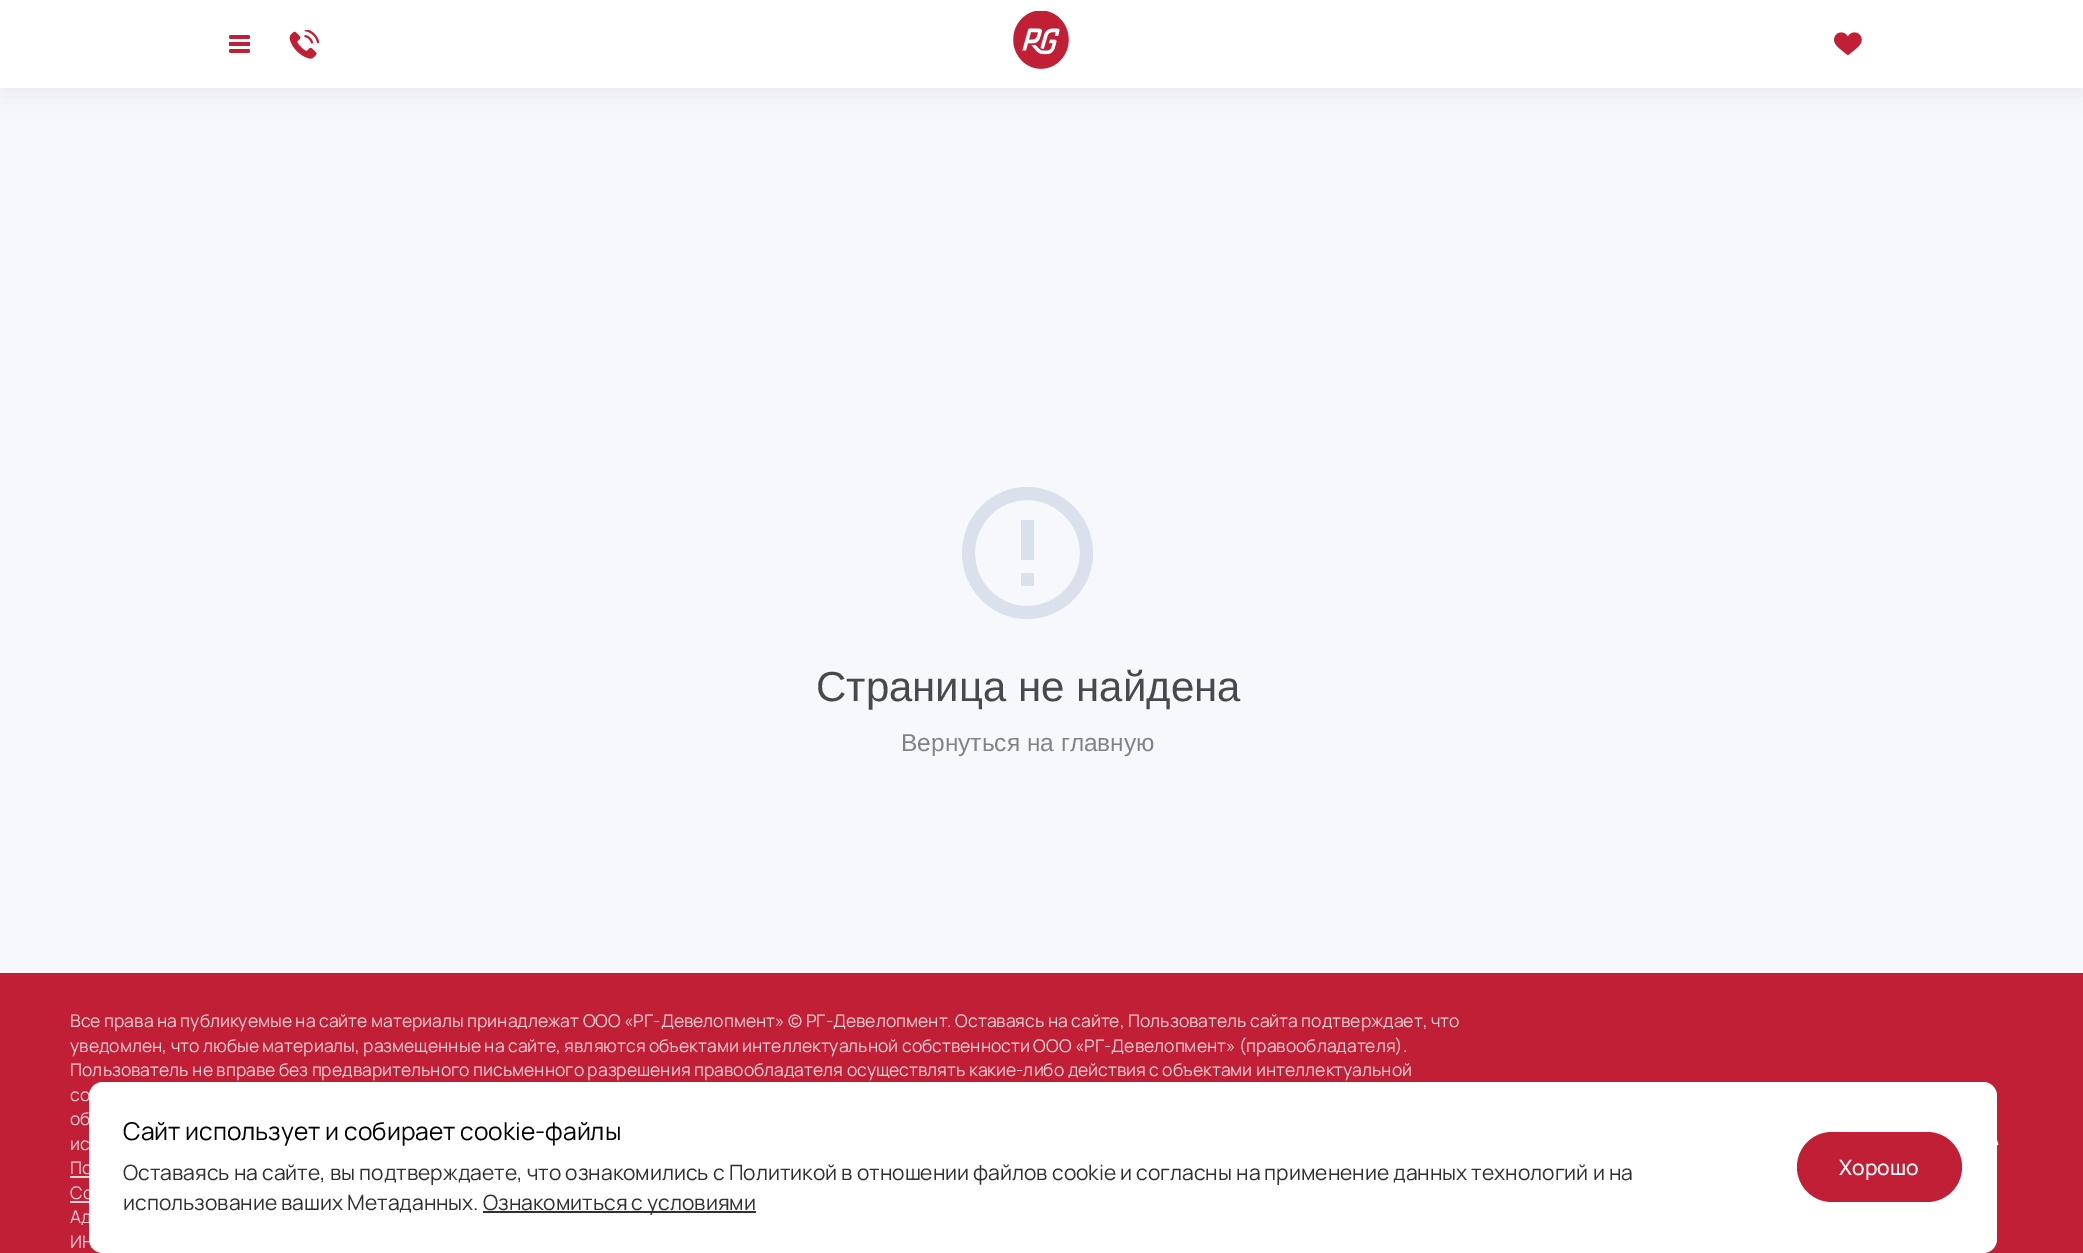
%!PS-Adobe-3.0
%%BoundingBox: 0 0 2083 1253
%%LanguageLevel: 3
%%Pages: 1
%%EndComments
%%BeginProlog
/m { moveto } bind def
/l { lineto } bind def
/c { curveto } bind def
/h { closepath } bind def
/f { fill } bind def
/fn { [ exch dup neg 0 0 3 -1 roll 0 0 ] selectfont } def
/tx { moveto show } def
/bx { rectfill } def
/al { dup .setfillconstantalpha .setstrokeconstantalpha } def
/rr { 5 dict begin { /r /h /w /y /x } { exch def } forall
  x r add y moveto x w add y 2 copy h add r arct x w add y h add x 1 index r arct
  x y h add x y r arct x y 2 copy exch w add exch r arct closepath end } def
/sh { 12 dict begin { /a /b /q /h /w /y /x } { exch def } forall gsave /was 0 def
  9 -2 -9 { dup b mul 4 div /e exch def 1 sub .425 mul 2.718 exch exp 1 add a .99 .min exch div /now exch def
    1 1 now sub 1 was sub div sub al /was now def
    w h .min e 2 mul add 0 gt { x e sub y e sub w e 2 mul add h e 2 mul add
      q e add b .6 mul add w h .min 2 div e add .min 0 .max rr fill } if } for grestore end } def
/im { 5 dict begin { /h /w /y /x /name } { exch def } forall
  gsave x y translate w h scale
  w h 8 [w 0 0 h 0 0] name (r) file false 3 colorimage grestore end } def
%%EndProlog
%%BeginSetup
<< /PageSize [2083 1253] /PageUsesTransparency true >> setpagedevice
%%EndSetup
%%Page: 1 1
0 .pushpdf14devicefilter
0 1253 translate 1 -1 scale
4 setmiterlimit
0.969 0.973 0.984 setrgbcolor
0 0 2083 1253 bx
0 setgray
0 7 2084 88 0 13 0.05 sh
1 setgray
0 0 2083 88 bx
0.757 0.122 0.212 setrgbcolor
229 35 21 4 2 rr f
229 42 21 4 bx
229 49 21 4 2 rr f
(image0.raw) 289 30 31 29 im
(image1.raw) 1013 11 56 58 im
(image2.raw) 1834 32 28 24 im
0.859 0.882 0.925 setrgbcolor
1021 573 m 1034 573 l 1034 586 l 1021 586 l h 1021 520 m 1034 520 l 1034 560 l 1021 560 l h 1027 487 m 991 487 962 517 962 553 c 962 589 991 619 1027 619 c 1063 619 1093 589 1093 553 c 1093 517 1063 487 1027 487 c h 1027 606 m 998 606 975 582 975 553 c 975 524 998 500 1027 500 c 1056 500 1080 524 1080 553 c 1080 582 1056 606 1027 606 c h f
/LiberationSans-Regular 42 fn
0.278 0.286 0.306 setrgbcolor
(Страница не найдена) 816 701 tx
/LiberationSans-Regular 24.5 fn
0.498 0.51 0.545 setrgbcolor
(Вернуться на главную) 901 751 tx
0.757 0.122 0.212 setrgbcolor
0 973 2083 280 bx
/Manrope-Regular 17.5 fn
0.953 0.824 0.843 setrgbcolor
(Все права на публикуемые на сайте материалы принадлежат ООО «РГ-Девелопмент» © РГ-Девелопмент. Оставаясь на сайте, Пользователь сайта подтверждает, что) 70 1027 tx
(уведомлен, что любые материалы, размещенные на сайте, являются объектами интеллектуальной собственности ООО «РГ-Девелопмент» \(правообладателя\).) 70 1052 tx
(Пользователь не вправе без предварительного письменного разрешения правообладателя осуществлять какие-либо действия с объектами интеллектуальной) 70 1076 tx
(со) 70 1101 tx
(об) 70 1125 tx
(ис) 70 1150 tx
(По) 70 1174 tx
70 1176 19 2 bx
(Со) 70 1199 tx
70 1201 19 2 bx
(Ад) 70 1223 tx
(ИН) 70 1248 tx
1 setgray
89 1082 1908 171 14 rr f
/Manrope-Regular 24.5 fn
0 setgray
(Сайт использует и собирает cookie‑файлы) 123 1140 tx
/Manrope-Regular 21 fn
0.188 setgray
(Оставаясь на сайте, вы подтверждаете, что ознакомились с Политикой в отношении файлов cookie и согласны на применение данных технологий и на) 123 1180 tx
(использование ваших Метаданных.) 123 1210 tx
483 1211 273 2 bx
(Ознакомиться с условиями) 483 1210 tx
0.757 0.122 0.212 setrgbcolor
1797 1132 165 70 35 rr f
/Manrope-Medium 21 fn
1 setgray
(Хорошо) 1839 1175 tx
(image3.raw) 1997 1140 2 6 im
.poppdf14devicefilter showpage
%%EOF
